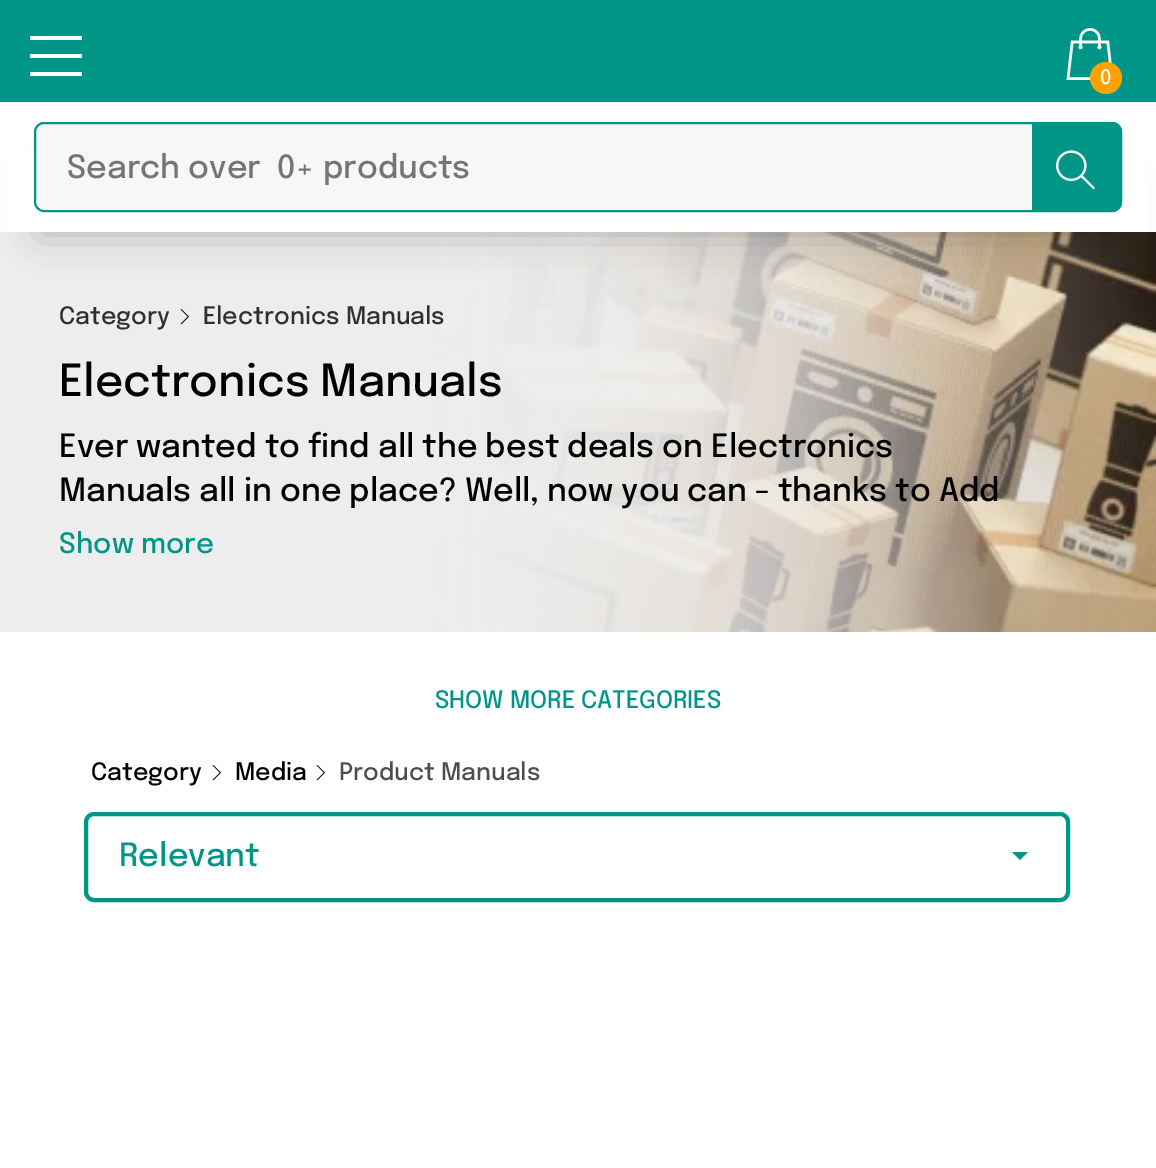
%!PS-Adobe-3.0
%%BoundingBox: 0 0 1156 1168
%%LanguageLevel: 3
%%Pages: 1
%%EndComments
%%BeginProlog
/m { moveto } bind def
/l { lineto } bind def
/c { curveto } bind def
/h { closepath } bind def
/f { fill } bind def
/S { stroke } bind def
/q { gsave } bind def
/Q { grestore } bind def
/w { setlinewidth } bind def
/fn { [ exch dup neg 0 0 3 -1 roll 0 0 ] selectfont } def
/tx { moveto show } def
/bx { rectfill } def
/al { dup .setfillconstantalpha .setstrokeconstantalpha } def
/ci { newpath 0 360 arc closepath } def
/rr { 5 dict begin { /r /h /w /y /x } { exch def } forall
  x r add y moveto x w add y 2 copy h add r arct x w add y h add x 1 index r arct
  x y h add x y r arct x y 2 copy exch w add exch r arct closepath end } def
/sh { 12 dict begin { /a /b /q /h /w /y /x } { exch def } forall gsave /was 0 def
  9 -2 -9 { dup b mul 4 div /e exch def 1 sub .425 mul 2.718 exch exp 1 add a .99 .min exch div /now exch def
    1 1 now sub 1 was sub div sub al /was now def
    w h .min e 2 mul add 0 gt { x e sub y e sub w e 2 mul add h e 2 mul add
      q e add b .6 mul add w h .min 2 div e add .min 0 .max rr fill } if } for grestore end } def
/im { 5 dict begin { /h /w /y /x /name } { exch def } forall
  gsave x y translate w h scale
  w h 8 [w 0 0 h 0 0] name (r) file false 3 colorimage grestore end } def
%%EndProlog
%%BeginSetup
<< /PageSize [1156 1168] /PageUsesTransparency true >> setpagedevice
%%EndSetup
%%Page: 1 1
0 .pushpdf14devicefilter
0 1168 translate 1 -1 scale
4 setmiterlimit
1 setgray
0 0 1156 1168 bx
0 0.588 0.529 setrgbcolor
0 0 1156 102 bx
1 setgray
30 54 52 4 bx
30 36 52 4 bx
30 72 52 4 bx
(image0.raw) 1066 28 46 52 im
1 0.635 0 setrgbcolor
1106 78 16 ci f
/Epilogue-Medium 20 fn
1 setgray
(0) 1100 84 tx
(image2.raw) 0 232 1156 400 im
0 setgray
40 182 1076 50 0 20 0.25 sh
1 setgray
7 147 1142 85 bx
0.969 setgray
35 123 1086 88 9 rr q f Q
0 0.588 0.529 setrgbcolor
2 w
S
/Epilogue-Medium 32 fn
0.459 setgray
(Search over  0+ products) 67 178 tx
0 0.588 0.529 setrgbcolor
1032 122 m 1112 122 l 1117.5 122 1122 126.5 1122 132 c 1122 202 l 1122 207.5 1117.5 212 1112 212 c 1032 212 l h f
(image1.raw) 1056 150 39 40 im
/Epilogue-Medium 24 fn
0.184 setgray
(Category) 59 324 tx
(image3.raw) 180 309 9 16 im
(Electronics Manuals) 203 324 tx
/Epilogue-Medium 44 fn
0 setgray
(Electronics Manuals) 59 396 tx
/Epilogue-Medium 32 fn
(Ever wanted to find all the best deals on Electronics) 59 457 tx
(Manuals all in one place? Well, now you can - thanks to Add) 59 501 tx
/Epilogue-Medium 28 fn
0 0.588 0.529 setrgbcolor
(Show more) 59 553 tx
/Epilogue-Medium 24 fn
(SHOW MORE CATEGORIES) 435 708 tx
0 setgray
(Category) 91 780 tx
(image4.raw) 212 765 9 16 im
(Media) 235 780 tx
(image4.raw) 316 765 9 16 im
0.302 setgray
(Product Manuals) 339 780 tx
0 0.588 0.529 setrgbcolor
4 w
86 814 982 86 8 rr S
/Epilogue-Medium 32 fn
(Relevant) 119 866 tx
1012 852 m 1028 852 l 1020 860 l h f
.poppdf14devicefilter showpage
%%EOF
